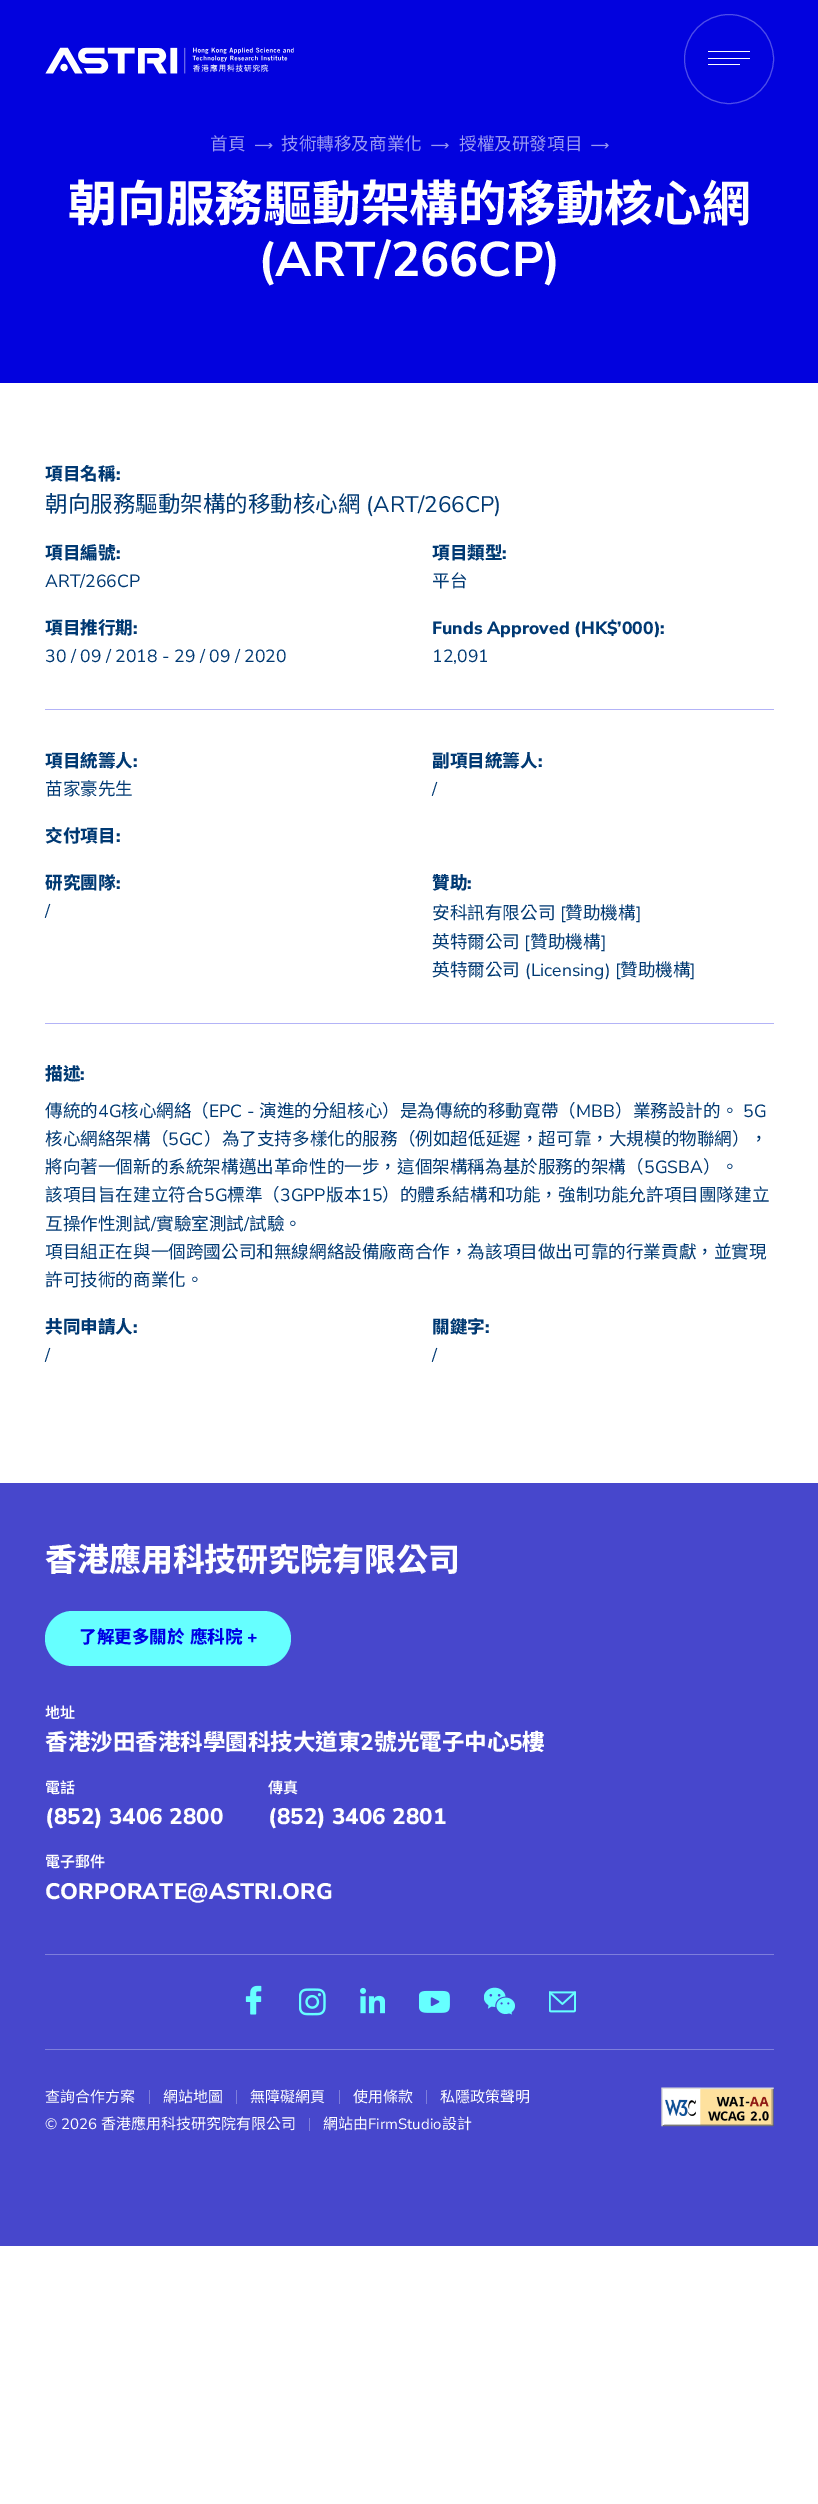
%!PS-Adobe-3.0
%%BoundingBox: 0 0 818 2504
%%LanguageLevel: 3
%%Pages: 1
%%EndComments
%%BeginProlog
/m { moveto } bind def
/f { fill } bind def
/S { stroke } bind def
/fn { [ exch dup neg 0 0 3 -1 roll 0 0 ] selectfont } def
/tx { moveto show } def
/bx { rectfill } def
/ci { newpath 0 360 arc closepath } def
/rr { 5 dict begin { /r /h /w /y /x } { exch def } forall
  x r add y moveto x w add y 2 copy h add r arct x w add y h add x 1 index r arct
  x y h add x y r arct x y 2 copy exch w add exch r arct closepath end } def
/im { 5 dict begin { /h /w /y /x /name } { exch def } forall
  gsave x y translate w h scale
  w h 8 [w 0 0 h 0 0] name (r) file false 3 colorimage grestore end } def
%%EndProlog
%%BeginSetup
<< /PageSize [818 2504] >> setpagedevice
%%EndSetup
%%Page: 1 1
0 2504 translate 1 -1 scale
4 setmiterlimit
1 setgray
0 0 818 2504 bx
0.008 0.008 0.871 setrgbcolor
0 0 818 383 bx
(image0.raw) 45 47 249 27 im
0.306 0.306 0.91 setrgbcolor
729 59 44.5 ci S
1 setgray
708 51 42 1 bx
708 58 42 1 bx
708 64 32 1 bx
/NotoSansTC-Regular 17.6 fn
0.604 0.604 0.949 setrgbcolor
(首頁) 210 150 tx
(image1.raw) 255 143 18 6 im
(技術轉移及商業化) 281 150 tx
(image2.raw) 431 143 18 6 im
(授權及研發項目) 459 150 tx
(image2.raw) 591 143 18 6 im
/NotoSansTC-Bold 48.75 fn
1 setgray
(朝向服務驅動架構的移動核心網) 68 221 tx
/NunitoSans-Bold 48.75 fn
(\(ART/266CP\)) 258 276 tx
/NotoSansTC-ExtraBold 17.6 fn
0 0.224 0.451 setrgbcolor
(項目名稱) 45 480 tx
/NunitoSans-ExtraBold 17.6 fn
(:) 116 480 tx
/NotoSansTC-Regular 22.5 fn
(朝向服務驅動架構的移動核心網) 45 512 tx
/NunitoSans-Regular 22.5 fn
(\(ART/266CP\)) 366 512 tx
/NotoSansTC-ExtraBold 17.6 fn
(項目編號) 45 559 tx
/NunitoSans-ExtraBold 17.6 fn
(:) 116 559 tx
/NunitoSans-Regular 17.6 fn
(ART/266CP) 45 587 tx
/NotoSansTC-ExtraBold 17.6 fn
(項目類型) 432 559 tx
/NunitoSans-ExtraBold 17.6 fn
(:) 502 559 tx
/NotoSansTC-Regular 17.6 fn
(平台) 432 587 tx
/NotoSansTC-ExtraBold 17.6 fn
(項目推行期) 45 634 tx
/NunitoSans-ExtraBold 17.6 fn
(:) 133 634 tx
/NunitoSans-Regular 17.6 fn
(30 / 09 / 2018 - 29 / 09 / 2020) 45 662 tx
/NunitoSans-ExtraBold 17.6 fn
(Funds Approved \(HK$’000\):) 432 634 tx
/NunitoSans-Regular 17.6 fn
(12,091) 432 662 tx
0.702 0.702 0.969 setrgbcolor
45 709 729 1 bx
/NotoSansTC-ExtraBold 17.6 fn
0 0.224 0.451 setrgbcolor
(項目統籌人) 45 767 tx
/NunitoSans-ExtraBold 17.6 fn
(:) 133 767 tx
/NotoSansTC-Regular 17.6 fn
(苗家豪先生) 45 795 tx
/NotoSansTC-ExtraBold 17.6 fn
(副項目統籌人) 432 767 tx
/NunitoSans-ExtraBold 17.6 fn
(:) 538 767 tx
/NunitoSans-Regular 17.6 fn
(/) 432 795 tx
/NotoSansTC-ExtraBold 17.6 fn
(交付項目) 45 842 tx
/NunitoSans-ExtraBold 17.6 fn
(:) 116 842 tx
/NotoSansTC-ExtraBold 17.6 fn
(研究團隊) 45 889 tx
/NunitoSans-ExtraBold 17.6 fn
(:) 116 889 tx
/NunitoSans-Regular 17.6 fn
(/) 45 917 tx
/NotoSansTC-ExtraBold 17.6 fn
(贊助) 432 889 tx
/NunitoSans-ExtraBold 17.6 fn
(:) 467 889 tx
/NotoSansTC-Regular 17.6 fn
(安科訊有限公司) 432 919 tx
/NunitoSans-Regular 17.6 fn
([) 560 919 tx
/NotoSansTC-Regular 17.6 fn
(贊助機構) 565 919 tx
/NunitoSans-Regular 17.6 fn
(]) 636 919 tx
/NotoSansTC-Regular 17.6 fn
(英特爾公司) 432 948 tx
/NunitoSans-Regular 17.6 fn
([) 524 948 tx
/NotoSansTC-Regular 17.6 fn
(贊助機構) 530 948 tx
/NunitoSans-Regular 17.6 fn
(]) 601 948 tx
/NotoSansTC-Regular 17.6 fn
(英特爾公司) 432 976 tx
/NunitoSans-Regular 17.6 fn
(\(Licensing\) [) 525 976 tx
/NotoSansTC-Regular 17.6 fn
(贊助機構) 620 976 tx
/NunitoSans-Regular 17.6 fn
(]) 690 976 tx
0.702 0.702 0.969 setrgbcolor
45 1023 729 1 bx
/NotoSansTC-ExtraBold 17.6 fn
0 0.224 0.451 setrgbcolor
(描述) 45 1080 tx
/NunitoSans-ExtraBold 17.6 fn
(:) 80 1080 tx
/NotoSansTC-Regular 17.6 fn
(傳統的) 45 1117 tx
/NunitoSans-Regular 17.6 fn
(4G) 98 1117 tx
/NotoSansTC-Regular 17.6 fn
(核心網絡（) 121 1117 tx
/NunitoSans-Regular 17.6 fn
(EPC -) 209 1117 tx
/NotoSansTC-Regular 17.6 fn
(演進的分組核心）是為傳統的移動寬帶（) 259 1117 tx
/NunitoSans-Regular 17.6 fn
(MBB) 576 1117 tx
/NotoSansTC-Regular 17.6 fn
(）業務設計的。) 615 1117 tx
/NunitoSans-Regular 17.6 fn
(5G) 743 1117 tx
/NotoSansTC-Regular 17.6 fn
(核心網絡架構（) 45 1145 tx
/NunitoSans-Regular 17.6 fn
(5GC) 168 1145 tx
/NotoSansTC-Regular 17.6 fn
(）為了支持多樣化的服務（例如超低延遲，超可靠，大規模的物聯網），) 204 1145 tx
(將向著一個新的系統架構邁出革命性的一步，這個架構稱為基於服務的架構（) 45 1173 tx
/NunitoSans-Regular 17.6 fn
(5GSBA) 644 1173 tx
/NotoSansTC-Regular 17.6 fn
(）。) 703 1173 tx
(該項目旨在建立符合) 45 1201 tx
/NunitoSans-Regular 17.6 fn
(5G) 204 1201 tx
/NotoSansTC-Regular 17.6 fn
(標準（) 227 1201 tx
/NunitoSans-Regular 17.6 fn
(3GPP) 280 1201 tx
/NotoSansTC-Regular 17.6 fn
(版本) 326 1201 tx
/NunitoSans-Regular 17.6 fn
(15) 361 1201 tx
/NotoSansTC-Regular 17.6 fn
(）的體系結構和功能，強制功能允許項目團隊建立) 382 1201 tx
(互操作性測試) 45 1230 tx
/NunitoSans-Regular 17.6 fn
(/) 151 1230 tx
/NotoSansTC-Regular 17.6 fn
(實驗室測試) 156 1230 tx
/NunitoSans-Regular 17.6 fn
(/) 244 1230 tx
/NotoSansTC-Regular 17.6 fn
(試驗。) 249 1230 tx
(項目組正在與一個跨國公司和無線網絡設備廠商合作，為該項目做出可靠的行業貢獻，並實現) 45 1258 tx
(許可技術的商業化。) 45 1286 tx
/NotoSansTC-ExtraBold 17.6 fn
(共同申請人) 45 1333 tx
/NunitoSans-ExtraBold 17.6 fn
(:) 133 1333 tx
/NunitoSans-Regular 17.6 fn
(/) 45 1361 tx
/NotoSansTC-ExtraBold 17.6 fn
(關鍵字) 432 1333 tx
/NunitoSans-ExtraBold 17.6 fn
(:) 485 1333 tx
/NunitoSans-Regular 17.6 fn
(/) 432 1361 tx
0.278 0.278 0.8 setrgbcolor
0 1483 818 763 bx
/NotoSansTC-ExtraBold 31.9 fn
1 setgray
(香港應用科技研究院有限公司) 45 1571 tx
0.4 1 1 setrgbcolor
45 1611 246 55 27.5 rr f
/NotoSansTC-ExtraBold 17.6 fn
0 0 0.898 setrgbcolor
79 1643 m 1 0 32 (了解更多關於 應科院) widthshow
/NunitoSans-ExtraBold 17.6 fn
(+) 247 1643 tx
/NotoSansTC-SemiBold 15 fn
1 setgray
(地址) 45 1718 tx
/NotoSansTC-ExtraBold 22.5 fn
(香港沙田香港科學園科技大道東) 45 1750 tx
/NunitoSans-ExtraBold 22.5 fn
(2) 360 1750 tx
/NotoSansTC-ExtraBold 22.5 fn
(號光電子中心) 374 1750 tx
/NunitoSans-ExtraBold 22.5 fn
(5) 509 1750 tx
/NotoSansTC-ExtraBold 22.5 fn
(樓) 522 1750 tx
/NotoSansTC-SemiBold 15 fn
(電話) 45 1793 tx
/NunitoSans-ExtraBold 22.5 fn
(\(852\) 3406 2800) 45 1824 tx
/NotoSansTC-SemiBold 15 fn
(傳真) 268 1793 tx
/NunitoSans-ExtraBold 22.5 fn
(\(852\) 3406 2801) 268 1824 tx
/NotoSansTC-SemiBold 15 fn
(電子郵件) 45 1867 tx
/NunitoSans-ExtraBold 22.5 fn
(CORPORATE@ASTRI.ORG) 45 1899 tx
0.494 0.494 0.859 setrgbcolor
45 1954 729 1 bx
45 2049 729 1 bx
(image3.raw) 245 1985 17 30 im
(image4.raw) 299 1988 27 28 im
(image5.raw) 360 1987 25 27 im
(image6.raw) 419 1990 31 23 im
(image7.raw) 484 1987 31 28 im
(image8.raw) 549 1991 27 22 im
/NotoSansTC-Regular 15 fn
1 setgray
(查詢合作方案) 45 2102 tx
0.494 0.494 0.859 setrgbcolor
149 2090 1 14 bx
1 setgray
(網站地圖) 163 2102 tx
0.494 0.494 0.859 setrgbcolor
236 2090 1 14 bx
1 setgray
(無障礙網頁) 250 2102 tx
0.494 0.494 0.859 setrgbcolor
339 2090 1 14 bx
1 setgray
(使用條款) 353 2102 tx
0.494 0.494 0.859 setrgbcolor
426 2090 1 14 bx
1 setgray
(私隱政策聲明) 440 2102 tx
/NunitoSans-Regular 15 fn
(© 2026) 45 2129 tx
/NotoSansTC-Regular 15 fn
(香港應用科技研究院有限公司) 101 2129 tx
0.494 0.494 0.859 setrgbcolor
309 2118 1 13 bx
1 setgray
(網站由) 323 2129 tx
/NunitoSans-Regular 15 fn
(FirmStudio) 368 2129 tx
/NotoSansTC-Regular 15 fn
(設計) 442 2129 tx
(image9.raw) 661 2087 113 40 im
showpage
%%EOF
